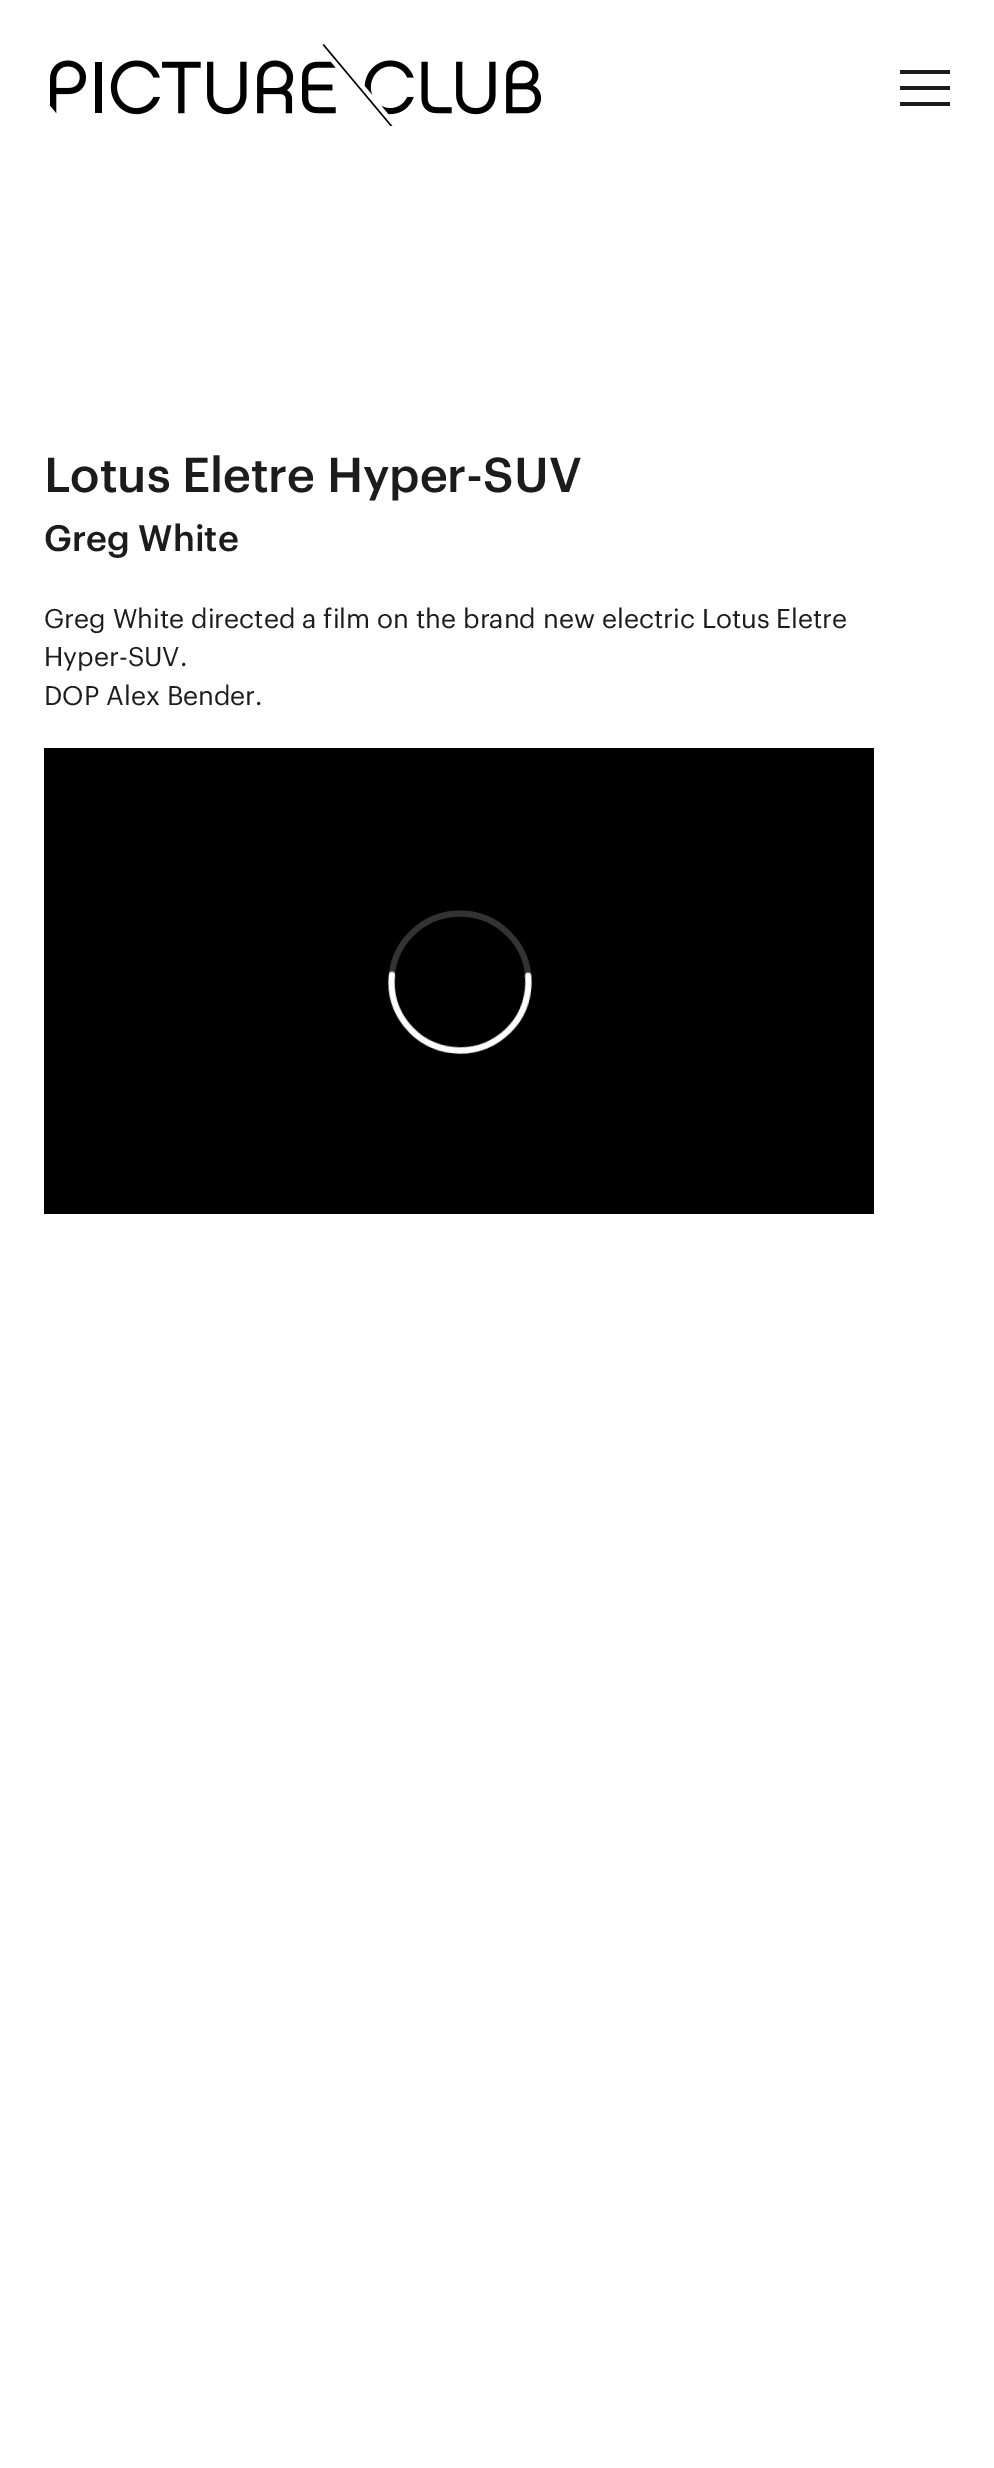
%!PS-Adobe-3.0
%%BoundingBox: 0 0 994 2468
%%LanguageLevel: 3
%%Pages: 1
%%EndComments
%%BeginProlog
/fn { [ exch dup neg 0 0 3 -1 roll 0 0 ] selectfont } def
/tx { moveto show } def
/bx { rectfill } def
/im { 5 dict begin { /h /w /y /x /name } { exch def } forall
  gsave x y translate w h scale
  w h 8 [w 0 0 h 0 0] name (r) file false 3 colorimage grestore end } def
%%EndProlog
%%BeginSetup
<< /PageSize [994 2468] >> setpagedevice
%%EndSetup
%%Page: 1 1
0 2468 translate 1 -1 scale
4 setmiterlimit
1 setgray
0 0 994 2468 bx
(image0.raw) 50 44 492 82 im
0.11 setgray
900 102 50 4 bx
900 70 50 4 bx
900 86 50 4 bx
/Graphik-Medium 48 fn
(Lotus Eletre Hyper-SUV) 44 492 tx
/Graphik-Medium 36 fn
(Greg White) 44 551 tx
/Graphik-Italic 26.4 fn
(Greg White directed a film on the brand new electric Lotus Eletre) 44 628 tx
(Hyper-SUV.) 44 666 tx
(DOP Alex Bender.) 44 705 tx
(image1.raw) 44 748 830 466 im
showpage
%%EOF
